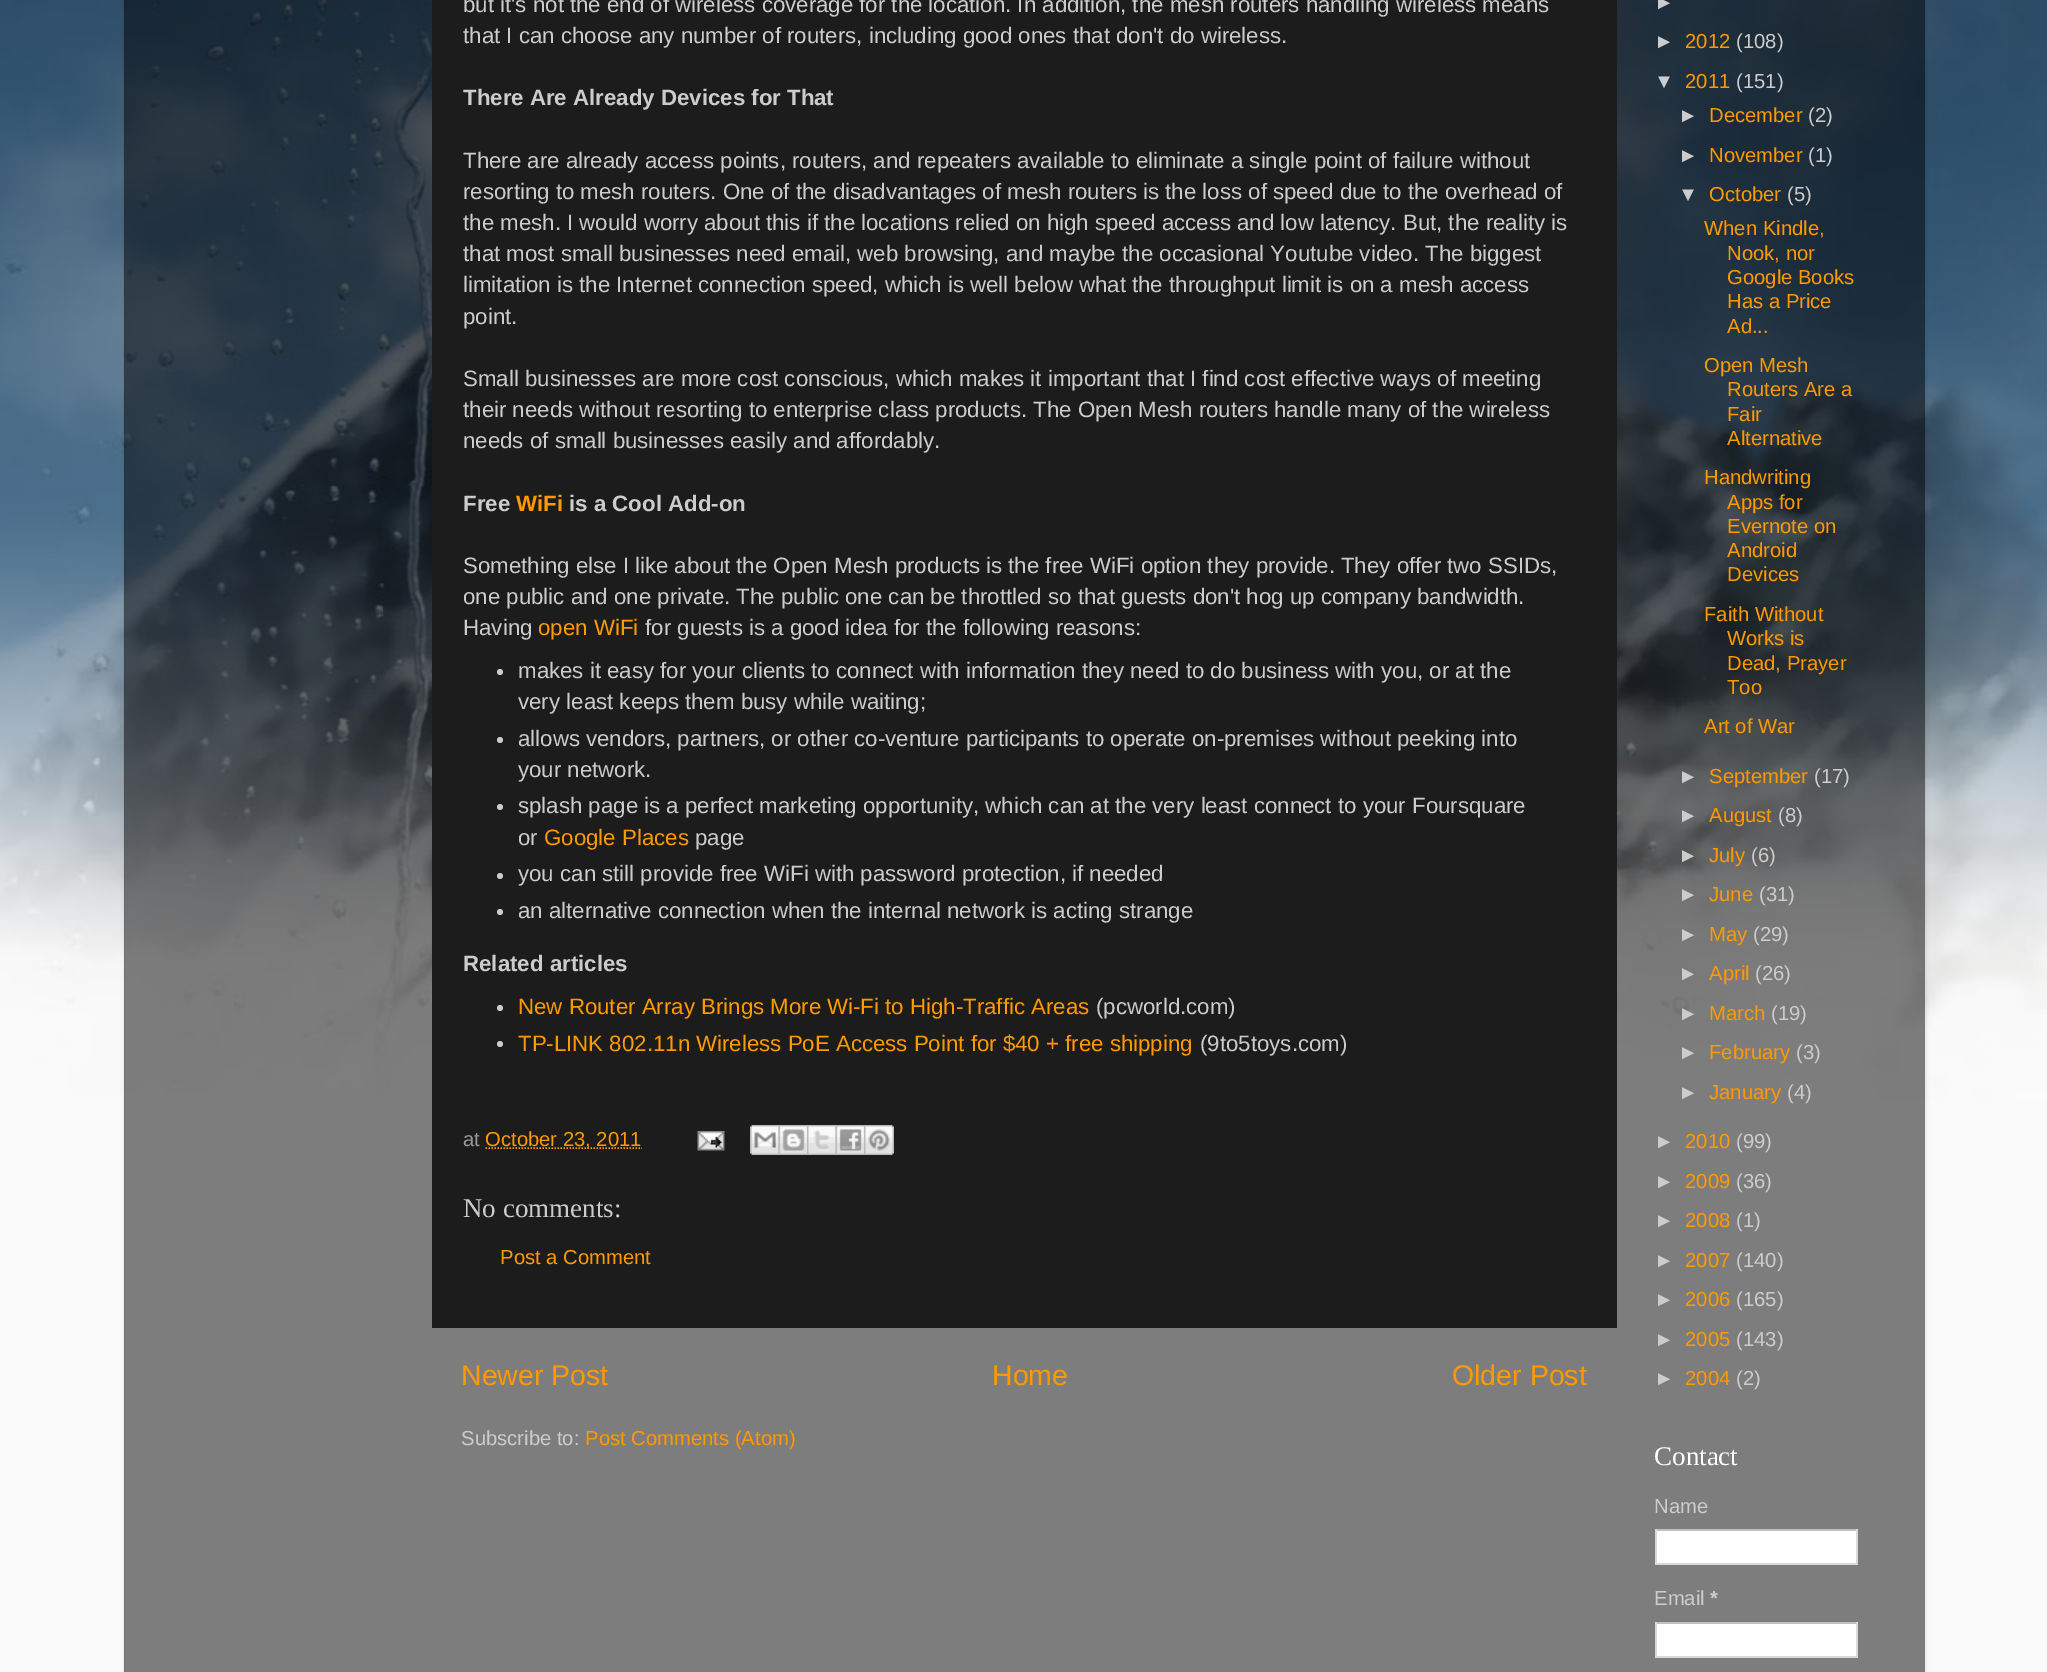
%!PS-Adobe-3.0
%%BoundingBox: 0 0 2047 1672
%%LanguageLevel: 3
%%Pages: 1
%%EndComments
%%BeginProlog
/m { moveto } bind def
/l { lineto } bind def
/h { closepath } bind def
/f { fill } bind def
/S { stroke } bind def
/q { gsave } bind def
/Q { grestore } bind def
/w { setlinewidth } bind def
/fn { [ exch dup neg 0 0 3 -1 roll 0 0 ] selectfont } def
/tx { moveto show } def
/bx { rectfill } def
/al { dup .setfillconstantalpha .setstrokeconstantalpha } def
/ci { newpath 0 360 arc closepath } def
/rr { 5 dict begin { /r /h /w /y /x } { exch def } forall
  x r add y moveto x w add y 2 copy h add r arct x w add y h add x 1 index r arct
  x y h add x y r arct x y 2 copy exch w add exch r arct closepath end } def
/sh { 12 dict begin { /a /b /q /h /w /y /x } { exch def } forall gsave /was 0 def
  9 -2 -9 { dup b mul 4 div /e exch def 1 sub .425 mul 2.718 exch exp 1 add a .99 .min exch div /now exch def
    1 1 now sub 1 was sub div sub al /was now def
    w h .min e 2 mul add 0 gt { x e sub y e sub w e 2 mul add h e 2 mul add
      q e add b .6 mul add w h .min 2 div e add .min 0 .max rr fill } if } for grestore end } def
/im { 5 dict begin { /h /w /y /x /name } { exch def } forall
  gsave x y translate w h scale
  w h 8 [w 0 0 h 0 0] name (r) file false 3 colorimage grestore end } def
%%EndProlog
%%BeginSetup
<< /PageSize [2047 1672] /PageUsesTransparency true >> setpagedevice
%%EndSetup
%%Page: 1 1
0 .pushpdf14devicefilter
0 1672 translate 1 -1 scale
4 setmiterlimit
0.98 setgray
0 0 2047 1672 bx
(image0.raw) 0 0 2047 1102 im
q
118 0 m 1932 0 l 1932 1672 l 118 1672 l h 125 -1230 m 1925 -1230 l 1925 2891 l 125 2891 l h eoclip newpath
0 setgray
125 -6 1800 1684 0 2 0.15 sh
Q
0.5 al
0 setgray
124 0 1801 1672 bx
1 al
0.11 setgray
432 0 1185 1328 bx
/LiberationSans-Regular 22.25 fn
0.8 setgray
(but it's not the end of wireless coverage for the location. In addition, the mesh routers handling wireless means) 463 12 tx
(that I can choose any number of routers, including good ones that don't do wireless.) 463 43 tx
/LiberationSans-Bold 22.25 fn
(There Are Already Devices for That) 463 105 tx
/LiberationSans-Regular 22.25 fn
(There are already access points, routers, and repeaters available to eliminate a single point of failure without) 463 168 tx
(resorting to mesh routers. One of the disadvantages of mesh routers is the loss of speed due to the overhead of) 463 199 tx
(the mesh. I would worry about this if the locations relied on high speed access and low latency. But, the reality is) 463 230 tx
(that most small businesses need email, web browsing, and maybe the occasional Youtube video. The biggest) 463 261 tx
(limitation is the Internet connection speed, which is well below what the throughput limit is on a mesh access) 463 292 tx
(point.) 463 324 tx
(Small businesses are more cost conscious, which makes it important that I find cost effective ways of meeting) 463 386 tx
(their needs without resorting to enterprise class products. The Open Mesh routers handle many of the wireless) 463 417 tx
(needs of small businesses easily and affordably.) 463 448 tx
/LiberationSans-Bold 22.25 fn
(Free) 463 511 tx
1 0.6 0 setrgbcolor
(WiFi) 516 511 tx
0.8 setgray
(is a Cool Add-on) 569 511 tx
/LiberationSans-Regular 22.25 fn
(Something else I like about the Open Mesh products is the free WiFi option they provide. They offer two SSIDs,) 463 573 tx
(one public and one private. The public one can be throttled so that guests don't hog up company bandwidth.) 463 604 tx
(Having) 463 635 tx
1 0.6 0 setrgbcolor
(open WiFi) 538 635 tx
0.8 setgray
(for guests is a good idea for the following reasons:) 645 635 tx
500 672 3 ci f
(makes it easy for your clients to connect with information they need to do business with you, or at the) 518 678 tx
(very least keeps them busy while waiting;) 518 709 tx
500 740 3 ci f
(allows vendors, partners, or other co-venture participants to operate on-premises without peeking into) 518 746 tx
(your network.) 518 777 tx
500 807 3 ci f
(splash page is a perfect marketing opportunity, which can at the very least connect to your Foursquare) 518 813 tx
(or) 518 845 tx
1 0.6 0 setrgbcolor
(Google Places) 544 845 tx
0.8 setgray
(page) 695 845 tx
500 876 3 ci f
(you can still provide free WiFi with password protection, if needed) 518 881 tx
500 912 3 ci f
(an alternative connection when the internal network is acting strange) 518 918 tx
/LiberationSans-Bold 22.25 fn
(Related articles) 463 971 tx
500 1008 3 ci f
/LiberationSans-Regular 22.25 fn
1 0.6 0 setrgbcolor
(New Router Array Brings More Wi-Fi to High-Traffic Areas) 518 1014 tx
0.8 setgray
(\(pcworld.com\)) 1096 1014 tx
500 1044 3 ci f
1 0.6 0 setrgbcolor
(TP-LINK 802.11n Wireless PoE Access Point for $40 + free shipping) 518 1051 tx
0.8 setgray
(\(9to5toys.com\)) 1200 1051 tx
/LiberationSans-Regular 20.25 fn
0.6 setgray
(at) 463 1146 tx
1 0.6 0 setrgbcolor
1.5 w
[1.5 1.5] 0 setdash
485.5 1148 m 642 1148 l S
(October 23, 2011) 485 1146 tx
(image1.raw) 697 1131 28 20 im
(image2.raw) 750 1125 29 30 im
(image3.raw) 778 1125 29 30 im
(image4.raw) 807 1125 29 30 im
(image5.raw) 835 1125 29 30 im
(image6.raw) 864 1125 30 30 im
/LiberationSerif-Regular 27 fn
0.8 setgray
(No comments:) 463 1217 tx
/LiberationSans-Regular 20.25 fn
1 0.6 0 setrgbcolor
(Post a Comment) 500 1264 tx
/LiberationSans-Regular 28.5 fn
(Newer Post) 461 1385 tx
(Home) 992 1385 tx
(Older Post) 1452 1385 tx
/LiberationSans-Regular 20.25 fn
0.8 setgray
(Subscribe to:) 461 1445 tx
1 0.6 0 setrgbcolor
(Post Comments \(Atom\)) 585 1445 tx
0.8 setgray
(►) 1654 9 tx
(►) 1654 48 tx
1 0.6 0 setrgbcolor
(2012) 1685 48 tx
0.8 setgray
(\(108\)) 1736 48 tx
(▼) 1654 88 tx
1 0.6 0 setrgbcolor
(2011) 1685 88 tx
0.8 setgray
(\(151\)) 1736 88 tx
(►) 1678 122 tx
1 0.6 0 setrgbcolor
(December) 1709 122 tx
0.8 setgray
(\(2\)) 1808 122 tx
(►) 1678 162 tx
1 0.6 0 setrgbcolor
(November) 1709 162 tx
0.8 setgray
(\(1\)) 1808 162 tx
(▼) 1678 201 tx
1 0.6 0 setrgbcolor
(October) 1709 201 tx
0.8 setgray
(\(5\)) 1787 201 tx
1 0.6 0 setrgbcolor
(When Kindle,) 1704 235 tx
(Nook, nor) 1727 260 tx
(Google Books) 1727 284 tx
(Has a Price) 1727 308 tx
(Ad...) 1727 333 tx
(Open Mesh) 1704 372 tx
(Routers Are a) 1727 396 tx
(Fair) 1727 421 tx
(Alternative) 1727 445 tx
(Handwriting) 1704 484 tx
(Apps for) 1727 509 tx
(Evernote on) 1727 533 tx
(Android) 1727 557 tx
(Devices) 1727 581 tx
(Faith Without) 1704 621 tx
(Works is) 1727 645 tx
(Dead, Prayer) 1727 670 tx
(Too) 1727 694 tx
(Art of War) 1704 733 tx
0.8 setgray
(►) 1678 783 tx
1 0.6 0 setrgbcolor
(September) 1709 783 tx
0.8 setgray
(\(17\)) 1814 783 tx
(►) 1678 822 tx
1 0.6 0 setrgbcolor
(August) 1709 822 tx
0.8 setgray
(\(8\)) 1778 822 tx
(►) 1678 862 tx
1 0.6 0 setrgbcolor
(July) 1709 862 tx
0.8 setgray
(\(6\)) 1751 862 tx
(►) 1678 901 tx
1 0.6 0 setrgbcolor
(June) 1709 901 tx
0.8 setgray
(\(31\)) 1759 901 tx
(►) 1678 941 tx
1 0.6 0 setrgbcolor
(May) 1709 941 tx
0.8 setgray
(\(29\)) 1753 941 tx
(►) 1678 980 tx
1 0.6 0 setrgbcolor
(April) 1709 980 tx
0.8 setgray
(\(26\)) 1755 980 tx
(►) 1678 1020 tx
1 0.6 0 setrgbcolor
(March) 1709 1020 tx
0.8 setgray
(\(19\)) 1771 1020 tx
(►) 1678 1059 tx
1 0.6 0 setrgbcolor
(February) 1709 1059 tx
0.8 setgray
(\(3\)) 1796 1059 tx
(►) 1678 1099 tx
1 0.6 0 setrgbcolor
(January) 1709 1099 tx
0.8 setgray
(\(4\)) 1787 1099 tx
(►) 1654 1148 tx
1 0.6 0 setrgbcolor
(2010) 1685 1148 tx
0.8 setgray
(\(99\)) 1736 1148 tx
(►) 1654 1188 tx
1 0.6 0 setrgbcolor
(2009) 1685 1188 tx
0.8 setgray
(\(36\)) 1736 1188 tx
(►) 1654 1227 tx
1 0.6 0 setrgbcolor
(2008) 1685 1227 tx
0.8 setgray
(\(1\)) 1736 1227 tx
(►) 1654 1267 tx
1 0.6 0 setrgbcolor
(2007) 1685 1267 tx
0.8 setgray
(\(140\)) 1736 1267 tx
(►) 1654 1306 tx
1 0.6 0 setrgbcolor
(2006) 1685 1306 tx
0.8 setgray
(\(165\)) 1736 1306 tx
(►) 1654 1346 tx
1 0.6 0 setrgbcolor
(2005) 1685 1346 tx
0.8 setgray
(\(143\)) 1736 1346 tx
(►) 1654 1385 tx
1 0.6 0 setrgbcolor
(2004) 1685 1385 tx
0.8 setgray
(\(2\)) 1736 1385 tx
/LiberationSerif-Regular 27 fn
1 setgray
(Contact) 1654 1465 tx
/LiberationSans-Regular 20.25 fn
0.8 setgray
(Name) 1654 1513 tx
1 setgray
1657 1531 199 32 bx
0.753 setgray
1655 1529 202 2 bx
0.851 setgray
1856 1529 2 36 bx
1655 1563 202 2 bx
1655 1529 2 36 bx
0.8 setgray
(Email) 1654 1605 tx
/LiberationSans-Bold 20.25 fn
(*) 1710 1605 tx
1 setgray
1657 1624 199 32 bx
0.753 setgray
1655 1622 202 2 bx
0.851 setgray
1856 1622 2 36 bx
1655 1656 202 2 bx
1655 1622 2 36 bx
.poppdf14devicefilter showpage
%%EOF
